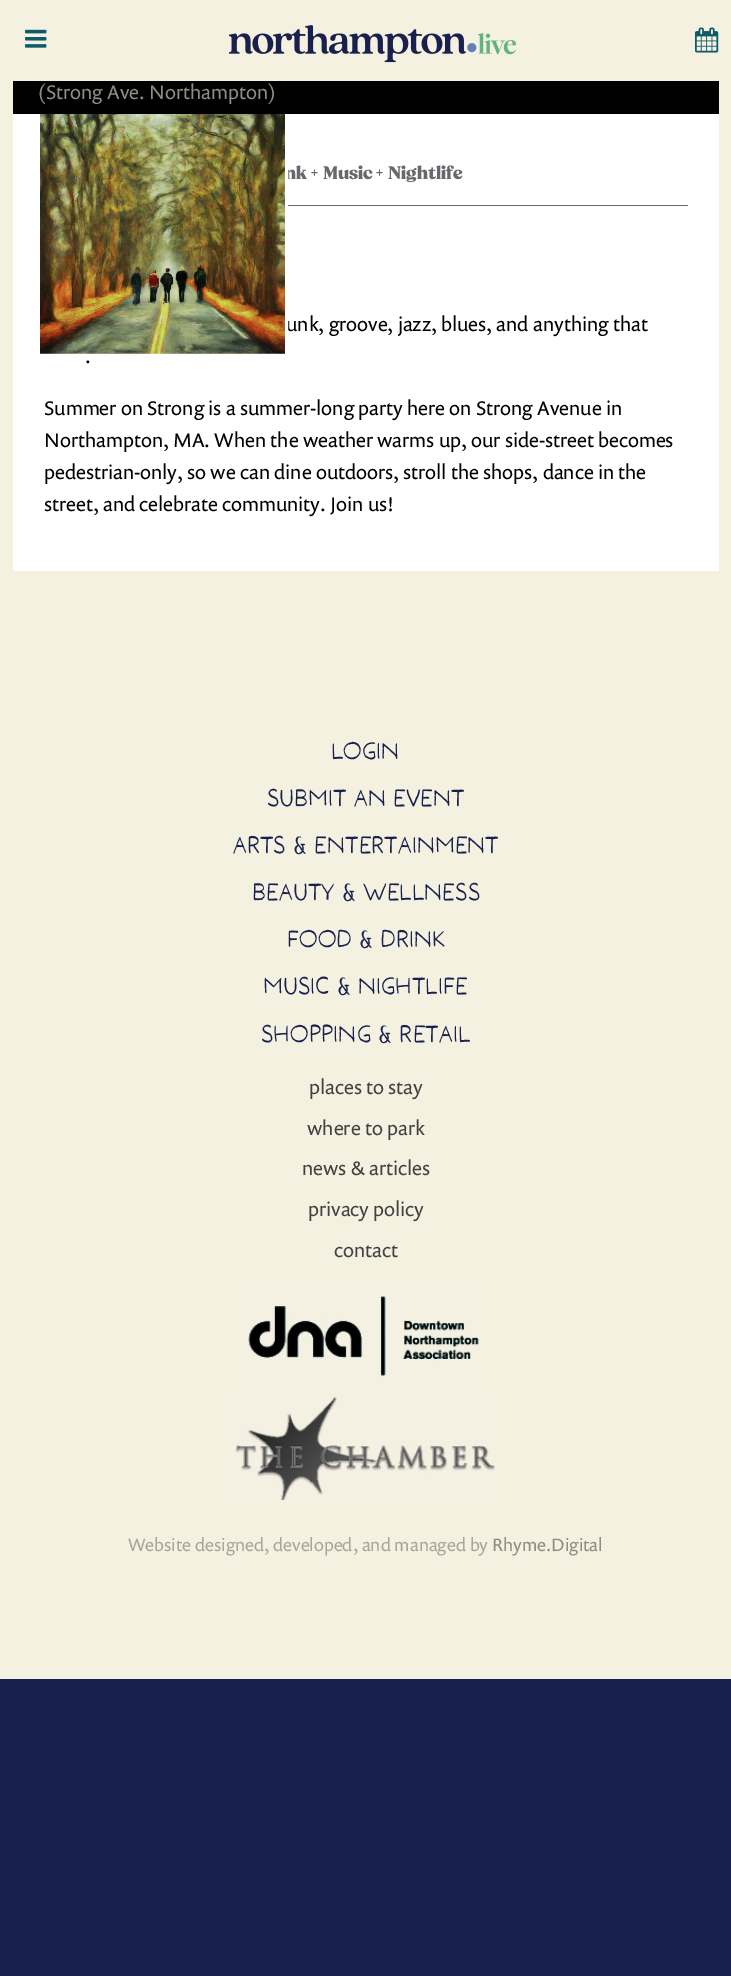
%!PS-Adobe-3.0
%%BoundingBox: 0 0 731 1976
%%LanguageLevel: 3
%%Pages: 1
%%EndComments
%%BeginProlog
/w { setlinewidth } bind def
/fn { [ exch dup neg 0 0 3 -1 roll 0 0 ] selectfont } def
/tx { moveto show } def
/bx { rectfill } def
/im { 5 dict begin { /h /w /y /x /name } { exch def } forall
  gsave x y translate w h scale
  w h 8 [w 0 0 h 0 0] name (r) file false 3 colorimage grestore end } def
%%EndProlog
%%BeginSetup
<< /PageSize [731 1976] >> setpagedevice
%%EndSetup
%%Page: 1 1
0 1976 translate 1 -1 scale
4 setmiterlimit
0.094 0.129 0.306 setrgbcolor
0 0 731 1976 bx
0.961 0.945 0.882 setrgbcolor
0 0 731 1679 bx
(image0.raw) 25 29 22 19 im
(image1.raw) 229 25 287 38 im
(image2.raw) 695 27 24 26 im
1 setgray
13 114 706 457 bx
/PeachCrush-ExtraBold 22.5 fn
0.396 0.408 0.424 setrgbcolor
(nk) 285 179 tx
/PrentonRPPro-Regular 20 fn
0 setgray
(unk, groove, jazz, blues, and anything that) 286 331 tx
1 setgray
3 w
39.5 107.5 247 247 rectstroke
0 setgray
13 81 287 33 bx
0.557 0.549 0.514 setrgbcolor
(\(Strong Ave. Northampton\)) 38 99 tx
(image3.raw) 40 114 245 240 im
0 setgray
300 81 419 33 bx
0.396 0.408 0.424 setrgbcolor
288 205 400 1 bx
/PeachCrush-ExtraBold 22.5 fn
(+) 311 179 tx
(Music) 323 179 tx
(+) 376 179 tx
(Nightlife) 388 179 tx
/PrentonRPPro-Regular 20 fn
0 setgray
(.) 85 363 tx
(Summer on Strong is a summer-long party here on Strong Avenue in) 44 415 tx
(Northampton, MA. When the weather warms up, our side-street becomes) 44 447 tx
(pedestrian-only, so we can dine outdoors, stroll the shops, dance in the) 44 479 tx
(street, and celebrate community. Join us!) 44 511 tx
/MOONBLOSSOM-Regular 24 fn
0.094 0.129 0.306 setrgbcolor
(LOGIN) 331 759 tx
(SUBMIT AN EVENT) 267 806 tx
(ARTS & ENTERTAINMENT) 233 853 tx
(BEAUTY & WELLNESS) 252 900 tx
(FOOD & DRINK) 287 947 tx
(MUSIC & NIGHTLIFE) 263 994 tx
(SHOPPING & RETAIL) 261 1042 tx
/PrentonRPPro-Regular 20 fn
0.259 setgray
(places to stay) 309 1094 tx
(where to park) 307 1135 tx
(news & articles) 302 1175 tx
(privacy policy) 308 1216 tx
(contact) 334 1257 tx
(image4.raw) 242 1293 238 85 im
(image5.raw) 235 1397 261 103 im
/PrentonRPPro-Regular 18 fn
0.659 0.647 0.608 setrgbcolor
(Website designed, developed, and managed by) 128 1551 tx
0.557 0.549 0.514 setrgbcolor
(Rhyme.Digital) 492 1551 tx
showpage
%%EOF
